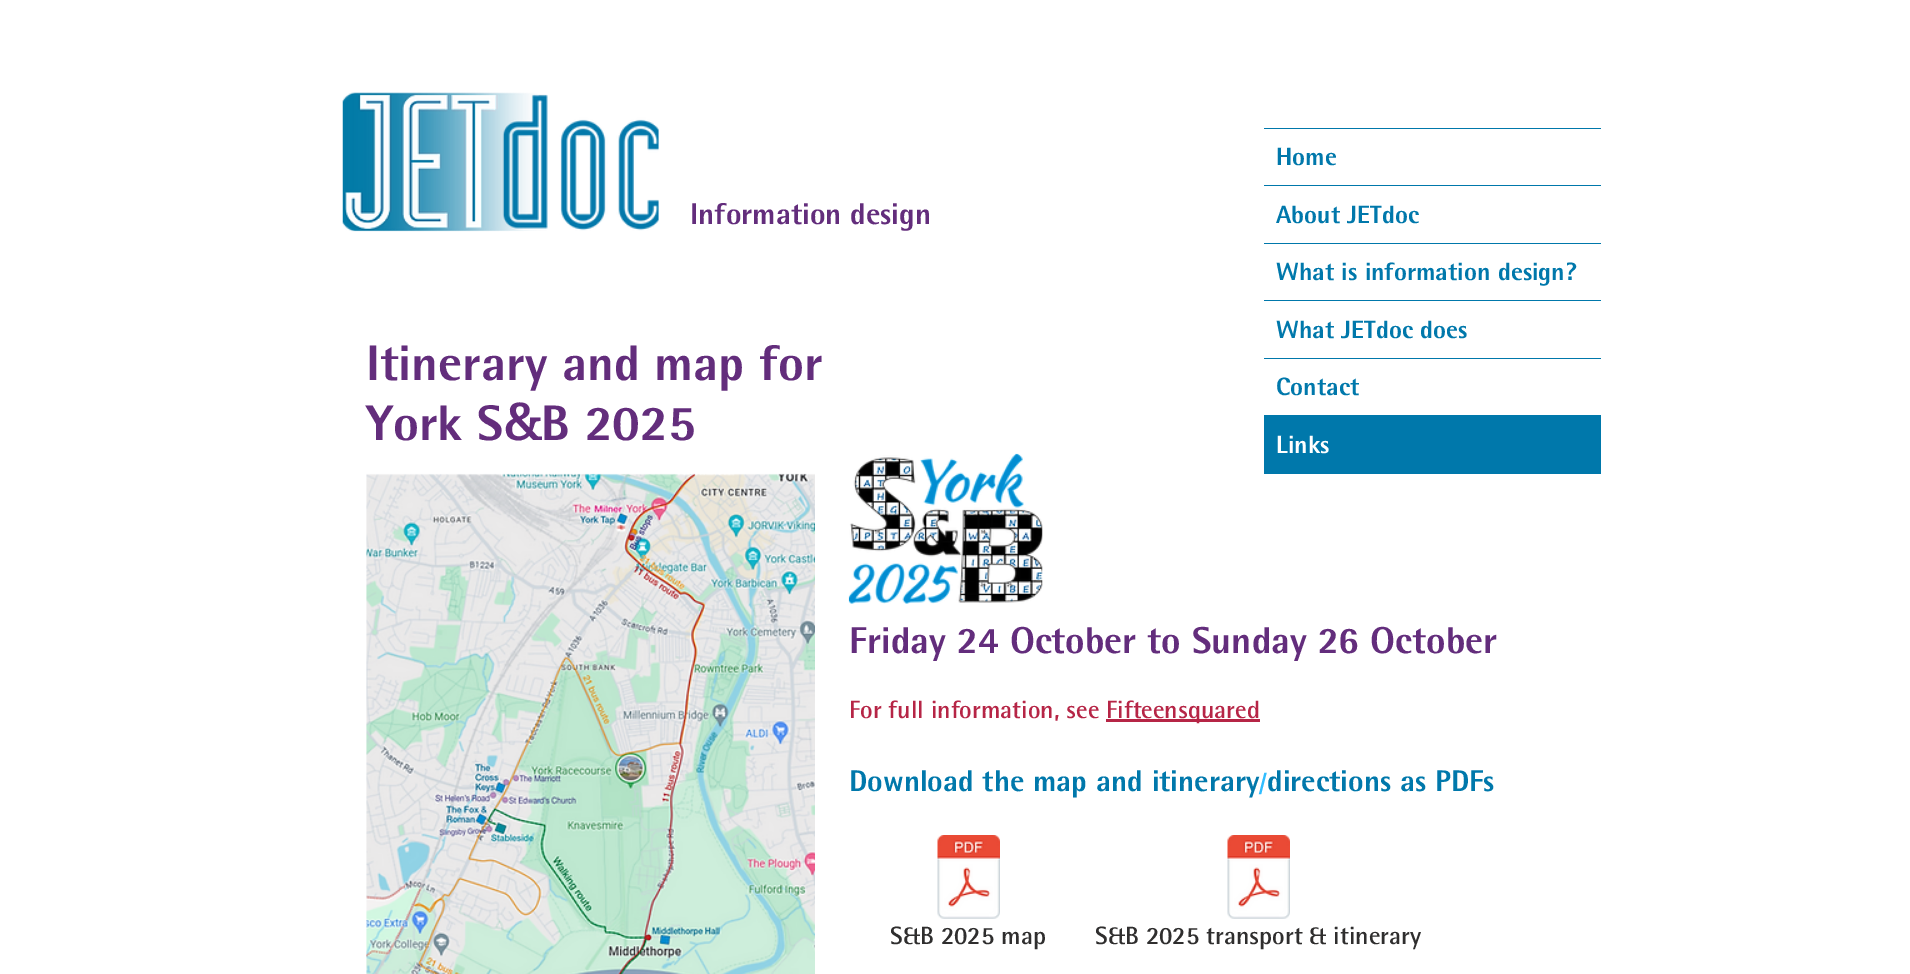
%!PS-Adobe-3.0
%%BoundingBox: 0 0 1910 974
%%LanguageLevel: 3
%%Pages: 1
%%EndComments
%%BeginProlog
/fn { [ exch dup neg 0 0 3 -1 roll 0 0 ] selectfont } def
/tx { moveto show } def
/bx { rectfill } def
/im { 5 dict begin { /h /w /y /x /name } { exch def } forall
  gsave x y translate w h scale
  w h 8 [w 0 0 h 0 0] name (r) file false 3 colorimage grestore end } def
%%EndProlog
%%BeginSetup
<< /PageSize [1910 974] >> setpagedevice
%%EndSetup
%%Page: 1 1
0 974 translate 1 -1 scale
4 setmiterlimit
1 setgray
0 0 1910 974 bx
(image0.raw) 342 92 317 140 im
/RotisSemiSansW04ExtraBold-ExtraBold 30 fn
0.388 0.176 0.486 setrgbcolor
(Information design) 690 224 tx
0 0.471 0.671 setrgbcolor
1264 128 337 1 bx
1264 473 337 1 bx
1264 185 337 1 bx
/RotisSemiSansW04ExtraBold-ExtraBold 25 fn
(Home) 1276 165 tx
1264 243 337 1 bx
(About JETdoc) 1276 223 tx
1264 300 337 1 bx
(What is information design?) 1276 280 tx
1264 358 337 1 bx
(What JETdoc does) 1276 338 tx
1264 415 337 58 bx
(Contact) 1276 395 tx
1 setgray
(Links) 1276 453 tx
/RotisSemiSansW04ExtraBold-ExtraBold 50 fn
0.388 0.176 0.486 setrgbcolor
(Itinerary and map for) 366 380 tx
(York S) 366 440 tx
/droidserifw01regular-Bold 50 fn
(&) 504 440 tx
/RotisSemiSansW04ExtraBold-ExtraBold 50 fn
(B 2025) 541 440 tx
(image1.raw) 366 473 449 501 im
(image2.raw) 848 453 195 151 im
/RotisSemiSansW04ExtraBold-ExtraBold 37.5 fn
(Friday 24 October to Sunday 26 October) 849 653 tx
/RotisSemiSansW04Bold-Bold 25 fn
0.714 0.145 0.275 setrgbcolor
(For full information, see) 849 718 tx
1106 719 154 3 bx
(Fifteensquared) 1106 718 tx
/RotisSemiSansW04ExtraBold-ExtraBold 30 fn
0 0.471 0.671 setrgbcolor
(Download the map and itinerary) 849 791 tx
/RotisSemiSansW04ExtraBold-ExtraBold 24 fn
0.188 0.741 1 setrgbcolor
(/) 1259 791 tx
/RotisSemiSansW04ExtraBold-ExtraBold 30 fn
0 0.471 0.671 setrgbcolor
(directions as PDFs) 1267 791 tx
(image3.raw) 937 835 63 84 im
/RotisSemiSansW04Bold-Bold 25 fn
0.184 0.18 0.18 setrgbcolor
(S&B 2025 map) 890 944 tx
(image4.raw) 1227 835 63 84 im
(S&B 2025 transport & itinerary) 1095 944 tx
showpage
%%EOF
